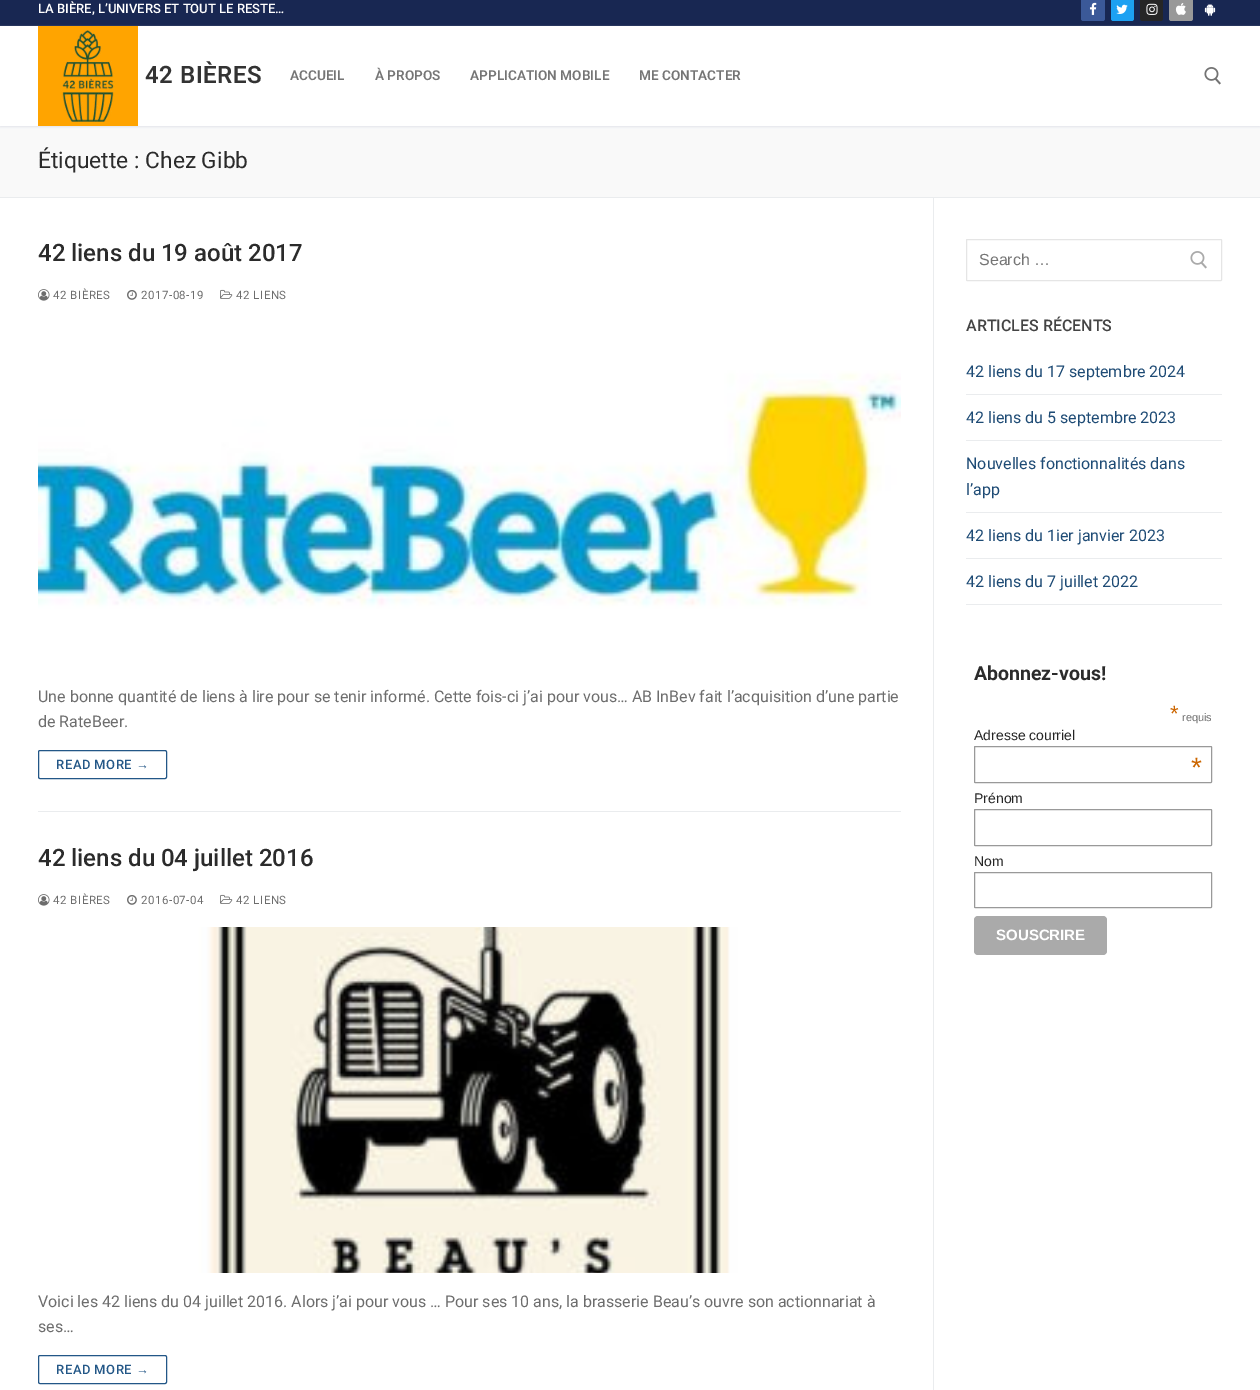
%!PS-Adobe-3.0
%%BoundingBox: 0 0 1260 1390
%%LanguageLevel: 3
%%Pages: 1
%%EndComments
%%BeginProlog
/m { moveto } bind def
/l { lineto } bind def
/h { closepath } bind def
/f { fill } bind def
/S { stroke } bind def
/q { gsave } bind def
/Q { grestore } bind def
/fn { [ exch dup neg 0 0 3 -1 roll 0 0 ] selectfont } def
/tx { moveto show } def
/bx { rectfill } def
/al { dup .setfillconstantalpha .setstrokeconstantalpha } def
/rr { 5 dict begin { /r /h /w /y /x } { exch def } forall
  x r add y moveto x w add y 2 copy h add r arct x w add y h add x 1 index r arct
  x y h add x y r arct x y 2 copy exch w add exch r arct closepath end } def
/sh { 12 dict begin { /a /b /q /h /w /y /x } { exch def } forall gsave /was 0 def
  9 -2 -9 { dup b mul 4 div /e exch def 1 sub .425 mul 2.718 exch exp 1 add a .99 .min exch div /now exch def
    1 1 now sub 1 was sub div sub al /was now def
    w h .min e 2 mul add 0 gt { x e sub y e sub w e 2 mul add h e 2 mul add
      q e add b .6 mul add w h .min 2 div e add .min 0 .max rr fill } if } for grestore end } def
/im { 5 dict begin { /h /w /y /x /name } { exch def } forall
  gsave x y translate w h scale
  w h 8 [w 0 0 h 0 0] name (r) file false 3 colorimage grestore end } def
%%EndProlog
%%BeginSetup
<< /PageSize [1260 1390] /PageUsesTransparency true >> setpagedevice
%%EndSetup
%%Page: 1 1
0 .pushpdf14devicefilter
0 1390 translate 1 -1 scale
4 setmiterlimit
1 setgray
0 0 1260 1390 bx
0.094 0.153 0.322 setrgbcolor
0 0 1260 26 bx
/Roboto-Medium 13 fn
1 setgray
(LA BIÈRE, L’UNIVERS ET TOUT LE RESTE…) 38 13 tx
0.231 0.349 0.596 setrgbcolor
1081 -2 24 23 2.5 rr f
(image0.raw) 1089 2 8 13 im
0.114 0.631 0.949 setrgbcolor
1111 -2 23 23 2.5 rr f
(image1.raw) 1116 4 12 10 im
0.149 setgray
1140 -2 23 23 2.5 rr f
(image2.raw) 1146 3 12 12 im
0.6 setgray
1169 -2 24 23 2.5 rr f
(image3.raw) 1175 3 11 12 im
(image4.raw) 1204 3 12 13 im
0.976 setgray
0 126 1260 71 bx
q
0 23 m 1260 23 l 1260 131 l 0 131 l h 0 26 m 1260 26 l 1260 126 l 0 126 l h eoclip newpath
0.882 0.898 0.918 setrgbcolor
0 27 1260 100 0 1 1 sh
Q
(image5.raw) 38 26 100 100 im
/Roboto-SemiBold 24 fn
0.2 setgray
145 83 m 0.5 0 (42 BIÈRES) ashow
/Roboto-SemiBold 13.6 fn
0.459 setgray
(ACCUEIL) 290 80 tx
(À PROPOS) 375 80 tx
(APPLICATION MOBILE) 470 80 tx
(ME CONTACTER) 639 80 tx
(image6.raw) 1204 67 17 18 im
0.918 0.925 0.933 setrgbcolor
0 197 1260 1 bx
/Roboto-Regular 22.75 fn
0.169 setgray
(Étiquette : Chez Gibb) 38 168 tx
0.918 0.925 0.933 setrgbcolor
933 198 1 1192 bx
38 811 863 1 bx
/Roboto-Medium 24 fn
0.169 setgray
(42 liens du 19 août 2017) 38 261 tx
(image7.raw) 38 289 12 12 im
/Roboto-Regular 11.5 fn
0.427 setgray
53 299 m 0.5 0 (42 BIÈRES) ashow
(image8.raw) 127 290 10 10 im
141 299 m 0.5 0 (2017-08-19) ashow
(image9.raw) 220 289 13 10 im
236 299 m 0.5 0 (42 LIENS) ashow
(image10.raw) 38 322 863 346 im
/Roboto-Regular 16 fn
(Une bonne quantité de liens à lire pour se tenir informé. Cette fois-ci j’ai pour vous… AB InBev fait l’acquisition d’une partie) 38 702 tx
(de RateBeer.) 38 727 tx
0.137 0.341 0.529 setrgbcolor
38.5 750.5 128 28 1.5 rr S
/Roboto-Medium 13 fn
56 769 m 0.5 0 (READ MORE) ashow
/LiberationSans-Regular 13 fn
136 769 m 0.5 0 (→) ashow
/Roboto-Medium 24 fn
0.169 setgray
(42 liens du 04 juillet 2016) 38 866 tx
(image7.raw) 38 894 12 12 im
/Roboto-Regular 11.5 fn
0.427 setgray
53 904 m 0.5 0 (42 BIÈRES) ashow
(image8.raw) 127 895 10 10 im
141 904 m 0.5 0 (2016-07-04) ashow
(image9.raw) 220 894 13 10 im
236 904 m 0.5 0 (42 LIENS) ashow
(image11.raw) 38 927 863 346 im
/Roboto-Regular 16 fn
(Voici les 42 liens du 04 juillet 2016. Alors j’ai pour vous … Pour ses 10 ans, la brasserie Beau’s ouvre son actionnariat à) 38 1307 tx
(ses…) 38 1332 tx
0.137 0.341 0.529 setrgbcolor
38.5 1355.5 128 28 1.5 rr S
/Roboto-Medium 13 fn
56 1374 m 0.5 0 (READ MORE) ashow
/LiberationSans-Regular 13 fn
136 1374 m 0.5 0 (→) ashow
0.898 setgray
966.5 239.5 255 41 0.5 rr S
/LiberationSans-Regular 16 fn
0.459 setgray
(Search …) 979 265 tx
(image12.raw) 1190 251 17 18 im
/Roboto-Medium 16 fn
0.267 setgray
(ARTICLES RÉCENTS) 966 331 tx
0.918 0.925 0.933 setrgbcolor
966 394 256 1 bx
/Roboto-Regular 16 fn
0.118 0.294 0.459 setrgbcolor
(42 liens du 17 septembre 2024) 966 377 tx
0.918 0.925 0.933 setrgbcolor
966 440 256 1 bx
0.118 0.294 0.459 setrgbcolor
(42 liens du 5 septembre 2023) 966 423 tx
0.918 0.925 0.933 setrgbcolor
966 512 256 1 bx
0.118 0.294 0.459 setrgbcolor
(Nouvelles fonctionnalités dans) 966 469 tx
(l’app) 966 495 tx
0.918 0.925 0.933 setrgbcolor
966 558 256 1 bx
0.118 0.294 0.459 setrgbcolor
(42 liens du 1ier janvier 2023) 966 541 tx
0.918 0.925 0.933 setrgbcolor
966 604 256 1 bx
0.118 0.294 0.459 setrgbcolor
(42 liens du 7 juillet 2022) 966 587 tx
/Roboto-Bold 19.5 fn
0.169 setgray
(Abonnez-vous!) 974 680 tx
/LiberationSans-Regular 22 fn
0.8 0.4 0 setrgbcolor
(*) 1170 721 tx
/LiberationSans-Regular 11 fn
0.427 setgray
(requis) 1182 721 tx
/LiberationSans-Regular 14 fn
0.145 setgray
(Adresse courriel) 974 740 tx
0.6 setgray
974.5 746.5 237 36 0.5 rr S
/LiberationSans-Regular 28 fn
0.8 0.4 0 setrgbcolor
(*) 1191 777 tx
/LiberationSans-Regular 14 fn
0.145 setgray
(Prénom) 974 803 tx
0.6 setgray
974.5 809.5 237 36 0.5 rr S
0.145 setgray
(Nom) 974 866 tx
0.6 setgray
974.5 872.5 237 35 0.5 rr S
0.667 setgray
974 916 133 39 4 rr f
/LiberationSans-Bold 15 fn
1 setgray
(SOUSCRIRE) 996 940 tx
.poppdf14devicefilter showpage
%%EOF
